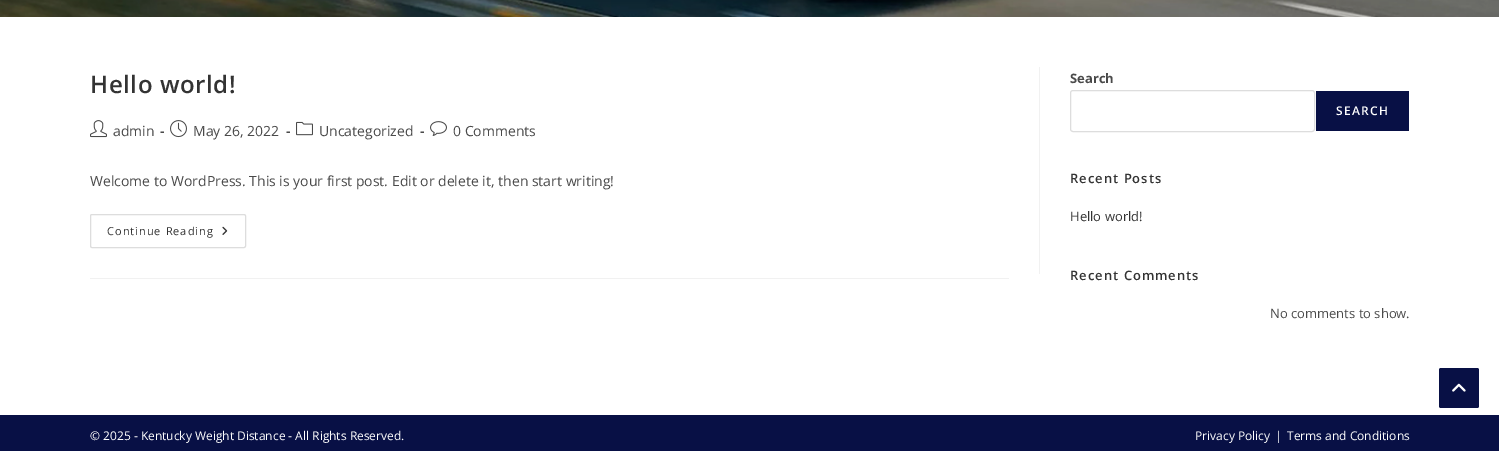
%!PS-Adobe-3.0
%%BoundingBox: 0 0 1499 451
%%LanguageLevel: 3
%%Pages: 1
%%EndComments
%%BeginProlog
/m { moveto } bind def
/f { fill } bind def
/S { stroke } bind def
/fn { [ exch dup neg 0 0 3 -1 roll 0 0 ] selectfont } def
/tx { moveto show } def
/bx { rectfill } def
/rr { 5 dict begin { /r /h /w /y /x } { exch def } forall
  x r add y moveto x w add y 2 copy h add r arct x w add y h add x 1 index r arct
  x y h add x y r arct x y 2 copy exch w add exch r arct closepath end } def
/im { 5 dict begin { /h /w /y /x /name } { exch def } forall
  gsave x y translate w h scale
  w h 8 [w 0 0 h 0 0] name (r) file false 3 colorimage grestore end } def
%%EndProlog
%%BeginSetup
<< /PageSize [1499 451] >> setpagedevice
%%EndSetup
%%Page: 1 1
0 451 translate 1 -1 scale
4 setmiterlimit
1 setgray
0 0 1499 451 bx
(image0.raw) 0 0 1499 17 im
0.945 setgray
1039 67 1 207 bx
90 278 919 1 bx
/OpenSans-SemiBold 24 fn
0.2 setgray
90 93 m 0.6 0 (Hello world!) ashow
(image1.raw) 90 120 17 18 im
/OpenSans-Regular 14 fn
0.29 setgray
(admin) 113 136 tx
/OpenSans-Bold 14 fn
(-) 160 136 tx
(image2.raw) 170 120 17 18 im
/OpenSans-Regular 14 fn
(May 26, 2022) 193 136 tx
/OpenSans-Bold 14 fn
(-) 286 136 tx
(image3.raw) 296 121 17 15 im
/OpenSans-Regular 14 fn
(Uncategorized) 319 136 tx
/OpenSans-Bold 14 fn
(-) 420 136 tx
(image4.raw) 430 121 17 15 im
/OpenSans-Regular 14 fn
(0 Comments) 453 136 tx
(Welcome to WordPress. This is your first post. Edit or delete it, then start writing!) 90 186 tx
0.867 setgray
90.5 214.5 155 33 1.5 rr S
/OpenSans-Regular 11 fn
0.2 setgray
107 235 m 1 0 (Continue Reading) ashow
(image5.raw) 222 226 6 9 im
/OpenSans-Bold 13 fn
0.29 setgray
(Search) 1070 83 tx
0.867 setgray
1070.5 90.5 244 41 2.5 rr S
0.031 0.063 0.271 setrgbcolor
1316 91 93 40 bx
/OpenSans-SemiBold 12 fn
1 setgray
1336 115 m 1.25 0 (SEARCH) ashow
/OpenSans-SemiBold 13 fn
0.2 setgray
1070 183 m 1 0 (Recent Posts) ashow
/OpenSans-Regular 13 fn
(Hello world!) 1070 221 tx
/OpenSans-SemiBold 13 fn
1070 280 m 1 0 (Recent Comments) ashow
/OpenSans-Regular 13 fn
0.29 setgray
(No comments to show.) 1270 318 tx
0.031 0.063 0.271 setrgbcolor
0 415 1499 36 bx
/OpenSans-Regular 12 fn
1 setgray
(© 2025 - Kentucky Weight Distance - All Rights Reserved.) 90 440 tx
(Privacy Policy) 1195 440 tx
(|) 1275 440 tx
(Terms and Conditions) 1287 440 tx
0.031 0.063 0.271 setrgbcolor
1439 368 40 40 2 rr f
(image6.raw) 1452 383 14 9 im
showpage
%%EOF
